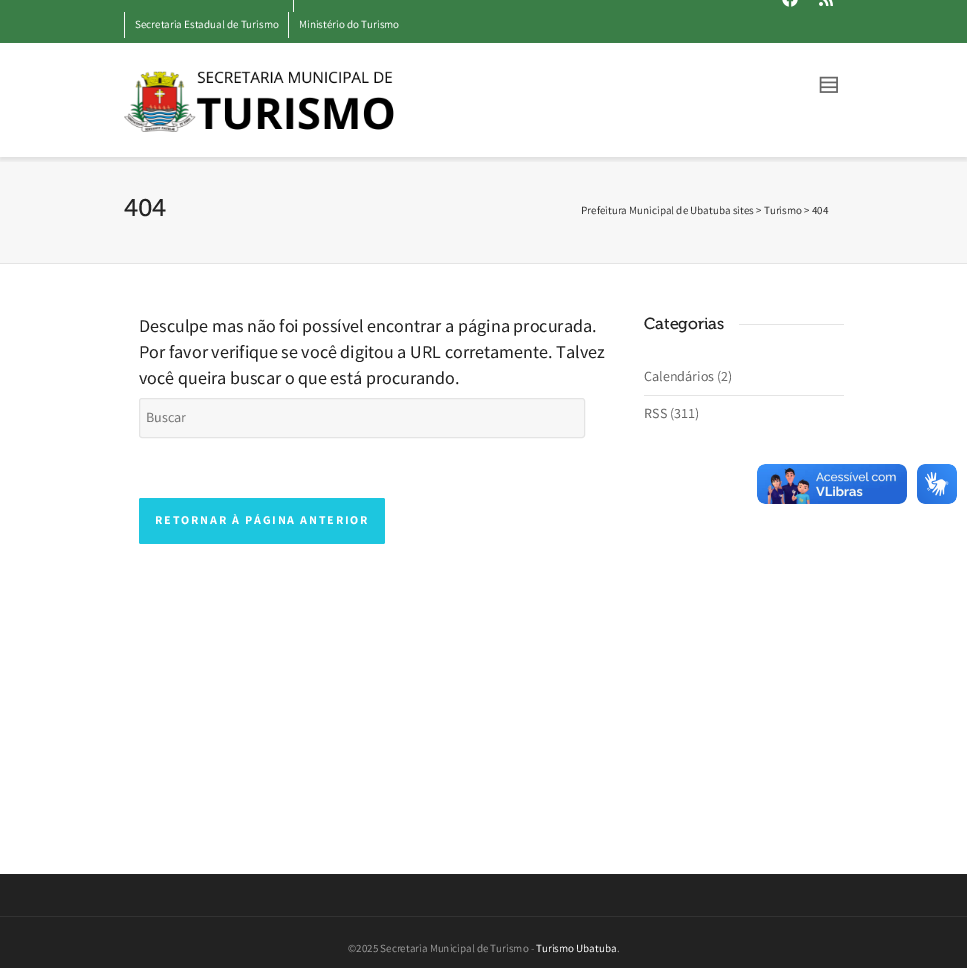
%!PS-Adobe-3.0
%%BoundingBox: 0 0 967 968
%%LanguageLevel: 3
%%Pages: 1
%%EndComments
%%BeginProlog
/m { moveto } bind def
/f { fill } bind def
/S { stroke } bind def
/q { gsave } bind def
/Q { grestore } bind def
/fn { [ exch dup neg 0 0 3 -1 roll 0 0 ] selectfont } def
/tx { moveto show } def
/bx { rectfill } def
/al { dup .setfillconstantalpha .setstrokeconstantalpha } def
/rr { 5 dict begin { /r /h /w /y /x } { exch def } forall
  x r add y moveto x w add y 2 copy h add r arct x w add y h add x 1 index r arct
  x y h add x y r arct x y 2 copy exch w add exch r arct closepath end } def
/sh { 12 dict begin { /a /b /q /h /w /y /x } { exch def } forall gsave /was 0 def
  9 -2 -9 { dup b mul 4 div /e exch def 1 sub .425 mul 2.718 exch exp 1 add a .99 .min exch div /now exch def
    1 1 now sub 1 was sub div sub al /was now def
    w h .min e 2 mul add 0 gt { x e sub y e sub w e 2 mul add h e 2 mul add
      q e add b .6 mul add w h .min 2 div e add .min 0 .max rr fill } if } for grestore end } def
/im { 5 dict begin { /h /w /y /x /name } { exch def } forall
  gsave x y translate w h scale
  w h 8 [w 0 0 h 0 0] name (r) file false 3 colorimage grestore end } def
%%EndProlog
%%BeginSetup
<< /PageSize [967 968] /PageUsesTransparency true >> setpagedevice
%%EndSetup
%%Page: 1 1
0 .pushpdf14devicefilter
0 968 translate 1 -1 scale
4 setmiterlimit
1 setgray
0 0 967 968 bx
0.969 setgray
0 157 967 106 bx
q
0 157 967 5 rectclip
0 setgray
0 46 967 114 0 2.5 0.1 sh
Q
0.227 0.494 0.278 setrgbcolor
0 0 967 43 bx
(image0.raw) 782 0 16 7 im
(image1.raw) 819 0 14 6 im
0.969 setgray
293 0 1 12 bx
124 12 1 26 bx
/SourceSansPro-Regular 11 fn
1 setgray
(Secretaria Estadual de Turismo) 135 28 tx
0.969 setgray
288 12 1 26 bx
1 setgray
(Ministério do Turismo) 299 28 tx
(image2.raw) 124 71 270 61 im
(image3.raw) 819 76 19 17 im
0.894 setgray
0 263 967 1 bx
/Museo-Regular 24 fn
0.133 setgray
(404) 124 216 tx
/SourceSansPro-Regular 11 fn
0.2 setgray
(Prefeitura Municipal de Ubatuba sites > Turismo > 404) 581 214 tx
/SourceSansPro-Regular 18 fn
0.133 setgray
(Desculpe mas não foi possível encontrar a página procurada.) 139 332 tx
(Por favor verifique se você digitou a URL corretamente. Talvez) 139 358 tx
(você queira buscar o que está procurando.) 139 384 tx
0.969 setgray
139.5 398.5 445 39 2.5 rr q f Q
0.894 setgray
S
/SourceSansPro-Regular 14 fn
0.459 setgray
(Buscar) 146 422 tx
0.114 0.776 0.875 setrgbcolor
139 498 246 46 2 rr f
/SourceSansPro-Bold 12 fn
1 setgray
155 524 m 1.8 0 (RETORNAR À PÁGINA ANTERIOR) ashow
/Museo-Regular 16 fn
0.133 setgray
(Categorias) 644 329 tx
0.894 setgray
739 324 105 1 bx
/SourceSansPro-Regular 14 fn
0.4 setgray
(Calendários \(2\)) 644 381 tx
0.894 setgray
644 395 200 1 bx
0.4 setgray
(RSS \(311\)) 644 418 tx
0.133 setgray
0 874 967 42 bx
0 917 967 51 bx
0.2 setgray
0 916 967 1 bx
/SourceSansPro-Regular 11 fn
0.6 setgray
(©2025 Secretaria Municipal de Turismo -) 348 952 tx
1 setgray
(Turismo Ubatuba) 536 952 tx
0.6 setgray
(.) 617 952 tx
(image4.raw) 757 464 150 40 im
(image5.raw) 917 464 40 40 im
.poppdf14devicefilter showpage
%%EOF
